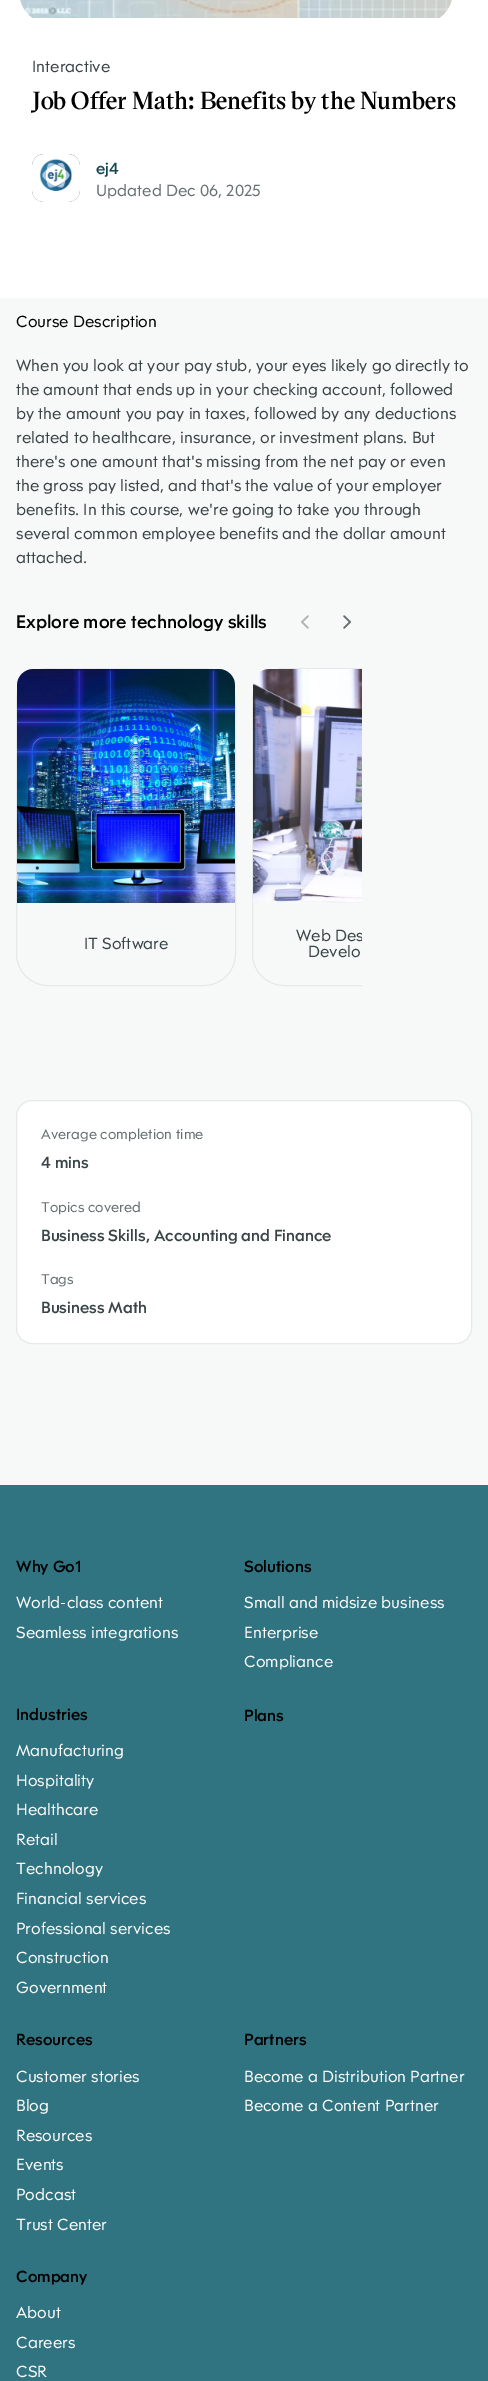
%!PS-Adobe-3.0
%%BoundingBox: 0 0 488 2381
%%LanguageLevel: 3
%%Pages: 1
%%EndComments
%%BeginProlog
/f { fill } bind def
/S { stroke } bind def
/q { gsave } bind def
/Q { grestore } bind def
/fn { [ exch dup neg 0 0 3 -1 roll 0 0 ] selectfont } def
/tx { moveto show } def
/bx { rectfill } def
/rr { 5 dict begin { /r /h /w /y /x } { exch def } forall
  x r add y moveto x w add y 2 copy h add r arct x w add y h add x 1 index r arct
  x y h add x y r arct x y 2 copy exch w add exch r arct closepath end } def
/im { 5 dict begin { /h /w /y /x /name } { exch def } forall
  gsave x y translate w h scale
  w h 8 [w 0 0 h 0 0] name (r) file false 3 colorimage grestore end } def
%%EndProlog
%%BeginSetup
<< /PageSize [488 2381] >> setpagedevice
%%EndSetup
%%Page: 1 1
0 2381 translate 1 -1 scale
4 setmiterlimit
1 setgray
0 0 488 2381 bx
(image0.raw) 20 0 432 18 im
/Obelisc-Regular 16 fn
0.224 0.267 0.275 setrgbcolor
(Interactive) 32 72 tx
/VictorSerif-SemiBold 24 fn
0 setgray
(Job Offer Math: Benefits by the Numbers) 32 109 tx
(image1.raw) 32 154 48 48 im
/Obelisc-Medium 16 fn
0.067 0.286 0.329 setrgbcolor
(ej4) 96 174 tx
/Obelisc-Regular 16 fn
0.4 0.435 0.443 setrgbcolor
(Updated Dec 06, 2025) 96 196 tx
0.969 0.973 0.973 setrgbcolor
0 298 488 1187 bx
0 setgray
(Course Description) 16 327 tx
0.224 0.267 0.275 setrgbcolor
(When you look at your pay stub, your eyes likely go directly to) 16 371 tx
(the amount that ends up in your checking account, followed) 16 395 tx
(by the amount you pay in taxes, followed by any deductions) 16 419 tx
(related to healthcare, insurance, or investment plans. But) 16 443 tx
(there's one amount that's missing from the net pay or even) 16 467 tx
(the gross pay listed, and that's the value of your employer) 16 491 tx
(benefits. In this course, we're going to take you through) 16 515 tx
(several common employee benefits and the dollar amount) 16 539 tx
(attached.) 16 563 tx
/Obelisc-Medium 18 fn
0 setgray
(Explore more technology skills) 16 628 tx
(image2.raw) 301 615 8 14 im
(image3.raw) 343 615 8 14 im
0.902 0.914 0.918 setrgbcolor
16.5 668.5 219 317 31.5 rr S
(image4.raw) 17 669 218 234 im
/Obelisc-Regular 16 fn
0.224 0.267 0.275 setrgbcolor
(IT Software) 84 949 tx
q
12 666 350 338 rectclip
0.902 0.914 0.918 setrgbcolor
252.5 668.5 211 317 31.5 rr S
Q
(image5.raw) 253 669 109 234 im
q
12 666 350 338 rectclip
(Web Des) 296 941 tx
Q
(Develo) 308 957 tx
1 setgray
16.5 1100.5 455 243 15.5 rr q f Q
0.902 0.914 0.918 setrgbcolor
S
/Obelisc-Regular 14 fn
0.4 0.435 0.443 setrgbcolor
(Average completion time) 41 1139 tx
/Obelisc-Medium 16 fn
0.224 0.267 0.275 setrgbcolor
(4 mins) 41 1168 tx
/Obelisc-Regular 14 fn
0.4 0.435 0.443 setrgbcolor
(Topics covered) 41 1212 tx
/Obelisc-Medium 16 fn
0.224 0.267 0.275 setrgbcolor
(Business Skills, Accounting and Finance) 41 1241 tx
/Obelisc-Regular 14 fn
0.4 0.435 0.443 setrgbcolor
(Tags) 41 1284 tx
/Obelisc-Medium 16 fn
0.224 0.267 0.275 setrgbcolor
(Business Math) 41 1313 tx
0.192 0.455 0.506 setrgbcolor
0 1485 488 896 bx
0 setgray
(Why Go1) 16 1572 tx
/Obelisc-Regular 16 fn
1 setgray
(World-class content) 16 1608 tx
(Seamless integrations) 16 1638 tx
/Obelisc-Medium 16 fn
0 setgray
(Solutions) 244 1572 tx
/Obelisc-Regular 16 fn
1 setgray
(Small and midsize business) 244 1608 tx
(Enterprise) 244 1638 tx
(Compliance) 244 1667 tx
/Obelisc-Medium 16 fn
0 setgray
(Industries) 16 1720 tx
/Obelisc-Regular 16 fn
1 setgray
(Manufacturing) 16 1756 tx
(Hospitality) 16 1786 tx
(Healthcare) 16 1815 tx
(Retail) 16 1845 tx
(Technology) 16 1874 tx
(Financial services) 16 1904 tx
(Professional services) 16 1934 tx
(Construction) 16 1963 tx
(Government) 16 1993 tx
/Obelisc-Medium 16 fn
0 setgray
(Plans) 244 1721 tx
(Resources) 16 2045 tx
/Obelisc-Regular 16 fn
1 setgray
(Customer stories) 16 2082 tx
(Blog) 16 2111 tx
(Resources) 16 2141 tx
(Events) 16 2170 tx
(Podcast) 16 2200 tx
(Trust Center) 16 2230 tx
/Obelisc-Medium 16 fn
0 setgray
(Partners) 244 2045 tx
/Obelisc-Regular 16 fn
1 setgray
(Become a Distribution Partner) 244 2082 tx
(Become a Content Partner) 244 2111 tx
/Obelisc-Medium 16 fn
0 setgray
(Company) 16 2282 tx
/Obelisc-Regular 16 fn
1 setgray
(About) 16 2318 tx
(Careers) 16 2348 tx
(CSR) 16 2377 tx
showpage
%%EOF
